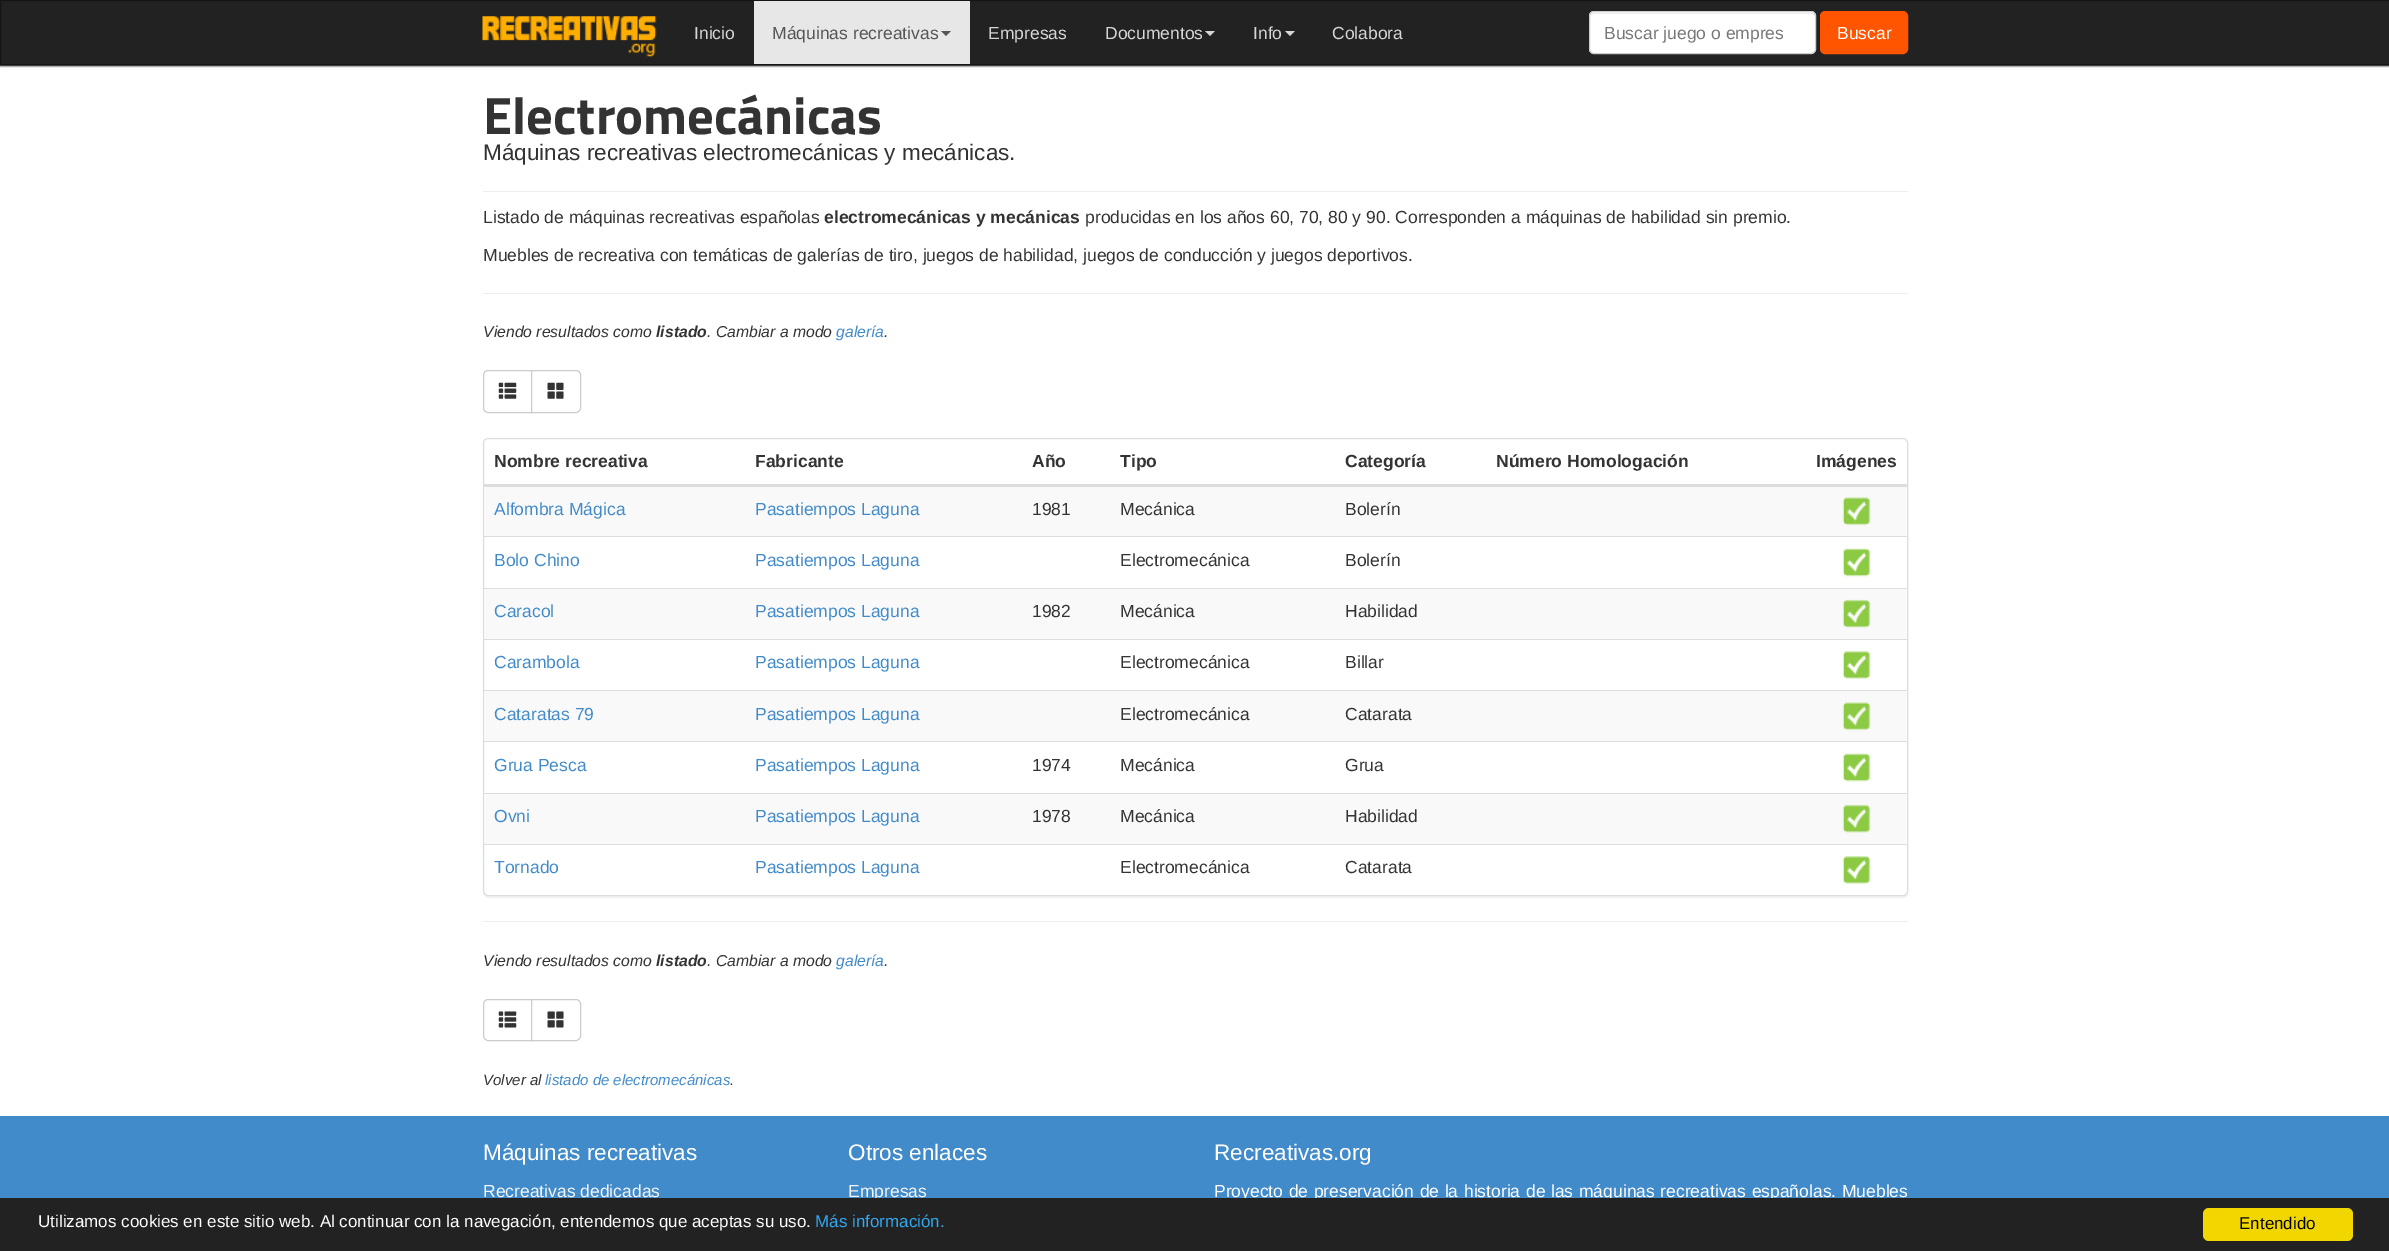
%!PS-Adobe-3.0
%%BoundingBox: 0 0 2389 1251
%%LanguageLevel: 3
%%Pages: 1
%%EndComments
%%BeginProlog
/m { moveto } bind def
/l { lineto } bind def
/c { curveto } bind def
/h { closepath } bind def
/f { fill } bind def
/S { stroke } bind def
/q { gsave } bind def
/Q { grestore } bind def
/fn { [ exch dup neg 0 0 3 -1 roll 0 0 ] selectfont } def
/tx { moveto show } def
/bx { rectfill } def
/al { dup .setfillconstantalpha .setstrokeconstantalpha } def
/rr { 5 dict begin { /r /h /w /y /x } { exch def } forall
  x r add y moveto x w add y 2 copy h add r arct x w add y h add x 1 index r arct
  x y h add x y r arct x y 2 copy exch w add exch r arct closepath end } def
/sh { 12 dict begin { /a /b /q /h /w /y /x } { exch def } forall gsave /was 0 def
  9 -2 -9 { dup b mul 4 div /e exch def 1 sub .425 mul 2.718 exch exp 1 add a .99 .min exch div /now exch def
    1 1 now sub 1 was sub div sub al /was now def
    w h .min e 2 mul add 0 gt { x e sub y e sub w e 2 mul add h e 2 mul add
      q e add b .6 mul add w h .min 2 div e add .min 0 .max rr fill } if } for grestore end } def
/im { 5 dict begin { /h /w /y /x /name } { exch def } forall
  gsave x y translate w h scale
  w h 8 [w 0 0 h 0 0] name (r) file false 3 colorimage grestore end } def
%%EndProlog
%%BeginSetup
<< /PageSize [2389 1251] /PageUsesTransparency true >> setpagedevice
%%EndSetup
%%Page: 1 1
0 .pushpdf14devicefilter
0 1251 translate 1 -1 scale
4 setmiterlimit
1 setgray
0 0 2389 1251 bx
0 setgray
0 1 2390 65 0 1 1 sh
0.133 setgray
0.5 0.5 m 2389.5 0.5 l 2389.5 64.5 l 0.5 64.5 l h q f Q
0.082 setgray
S
(image0.raw) 482 16 175 41 im
/LiberationSans-Regular 17.5 fn
0.839 setgray
(Inicio) 694 39 tx
0.906 setgray
754 1 216 63 bx
0.333 setgray
(Máquinas recreativas) 772 39 tx
941 31 m 951 31 l 946 36 l h f
0.839 setgray
(Empresas) 988 39 tx
(Documentos) 1105 39 tx
1205 31 m 1215 31 l 1210 36 l h f
(Info) 1253 39 tx
1285 31 m 1295 31 l 1290 36 l h f
(Colabora) 1332 39 tx
1 setgray
1589 11 227 43 5 rr f
0.925 setgray
1594 14 m 1811 14 l 1813 14 1815 15 1815 18 c 1815 15 1814 13 1811 13 c 1594 13 l 1591 13 1590 15 1590 18 c 1590 15 1592 14 1594 14 c h f
0.8 setgray
1589.5 11.5 226 42 4.5 rr S
q
1605 23 178 20 rectclip
0.467 setgray
(Buscar juego o empres) 1604 39 tx
Q
1 0.333 0 setrgbcolor
1820.5 11.5 87 42 4.5 rr q f Q
S
1 setgray
(Buscar) 1837 39 tx
/TitilliumWeb-Bold 52.5 fn
0.2 setgray
(Electromecánicas) 483 134 tx
0.933 setgray
483 191 1425 1 bx
/LiberationSans-Regular 22.5 fn
0.2 setgray
(Máquinas recreativas electromecánicas y mecánicas.) 483 160 tx
/LiberationSans-Regular 17.5 fn
(Listado de máquinas recreativas españolas) 483 223 tx
/LiberationSans-Bold 17.5 fn
(electromecánicas y mecánicas) 824 223 tx
/LiberationSans-Regular 17.5 fn
(producidas en los años 60, 70, 80 y 90. Corresponden a máquinas de habilidad sin premio.) 1085 223 tx
(Muebles de recreativa con temáticas de galerías de tiro, juegos de habilidad, juegos de conducción y juegos deportivos.) 483 261 tx
0.933 setgray
483 293 1425 1 bx
/LiberationSans-Italic 15.75 fn
0.2 setgray
(Viendo resultados como) 483 337 tx
/LiberationSans-BoldItalic 15.75 fn
(listado) 656 337 tx
/LiberationSans-Italic 15.75 fn
(. Cambiar a modo) 707 337 tx
0.259 0.545 0.792 setrgbcolor
(galería) 836 337 tx
0.2 setgray
(.) 884 337 tx
0.8 setgray
488 370.5 m 532.5 370.5 l 532.5 412.5 l 488 412.5 l 485.5 412.5 483.5 410.5 483.5 408 c 483.5 375 l 483.5 372.5 485.5 370.5 488 370.5 c h S
(image1.raw) 498 382 19 17 im
1 setgray
531.5 370.5 m 576 370.5 l 578.5 370.5 580.5 372.5 580.5 375 c 580.5 408 l 580.5 410.5 578.5 412.5 576 412.5 c 531.5 412.5 l h q f Q
0.8 setgray
S
(image2.raw) 547 382 17 17 im
0 setgray
483 439 1425 459 5 0.5 0.05 sh
1 setgray
483.5 438.5 1424 457 4.5 rr q f Q
0.867 setgray
S
/LiberationSans-Bold 17.5 fn
0.2 setgray
(Nombre recreativa) 494 467 tx
(Fabricante) 755 467 tx
(Año) 1032 467 tx
(Tipo) 1120 467 tx
(Categoría) 1345 467 tx
(Número Homologación) 1496 467 tx
0.867 setgray
483 484 1425 3 bx
0.2 setgray
(Imágenes) 1816 467 tx
0.976 setgray
484 487 1422 49 bx
/LiberationSans-Regular 17.5 fn
0.259 0.545 0.792 setrgbcolor
(Alfombra Mágica) 494 515 tx
(Pasatiempos Laguna) 755 515 tx
0.2 setgray
(1981) 1032 515 tx
(Mecánica) 1120 515 tx
(Bolerín) 1345 515 tx
(image3.raw) 1842 497 29 29 im
0.867 setgray
484 536 1424 1 bx
(image4.raw) 1842 548 29 29 im
0.259 0.545 0.792 setrgbcolor
(Bolo Chino) 494 566 tx
(Pasatiempos Laguna) 755 566 tx
0.2 setgray
(Electromecánica) 1120 566 tx
(Bolerín) 1345 566 tx
0.867 setgray
484 588 1424 1 bx
0.976 setgray
484 589 1422 50 bx
(image5.raw) 1842 599 29 29 im
0.259 0.545 0.792 setrgbcolor
(Caracol) 494 617 tx
(Pasatiempos Laguna) 755 617 tx
0.2 setgray
(1982) 1032 617 tx
(Mecánica) 1120 617 tx
(Habilidad) 1345 617 tx
0.867 setgray
484 639 1424 1 bx
(image6.raw) 1842 651 29 28 im
0.259 0.545 0.792 setrgbcolor
(Carambola) 494 668 tx
(Pasatiempos Laguna) 755 668 tx
0.2 setgray
(Electromecánica) 1120 668 tx
(Billar) 1345 668 tx
0.867 setgray
484 690 1424 1 bx
0.976 setgray
484 691 1422 50 bx
(image3.raw) 1842 702 29 29 im
0.259 0.545 0.792 setrgbcolor
(Cataratas 79) 494 720 tx
(Pasatiempos Laguna) 755 720 tx
0.2 setgray
(Electromecánica) 1120 720 tx
(Catarata) 1345 720 tx
0.867 setgray
484 741 1424 1 bx
(image4.raw) 1842 753 29 29 im
0.259 0.545 0.792 setrgbcolor
(Grua Pesca) 494 771 tx
(Pasatiempos Laguna) 755 771 tx
0.2 setgray
(1974) 1032 771 tx
(Mecánica) 1120 771 tx
(Grua) 1345 771 tx
0.867 setgray
484 793 1424 1 bx
0.976 setgray
484 794 1422 50 bx
(image5.raw) 1842 804 29 29 im
0.259 0.545 0.792 setrgbcolor
(Ovni) 494 822 tx
(Pasatiempos Laguna) 755 822 tx
0.2 setgray
(1978) 1032 822 tx
(Mecánica) 1120 822 tx
(Habilidad) 1345 822 tx
0.867 setgray
484 844 1424 1 bx
(image6.raw) 1842 856 29 28 im
0.259 0.545 0.792 setrgbcolor
(Tornado) 494 873 tx
(Pasatiempos Laguna) 755 873 tx
0.2 setgray
(Electromecánica) 1120 873 tx
(Catarata) 1345 873 tx
0.933 setgray
483 921 1425 1 bx
/LiberationSans-Italic 15.75 fn
0.2 setgray
(Viendo resultados como) 483 966 tx
/LiberationSans-BoldItalic 15.75 fn
(listado) 656 966 tx
/LiberationSans-Italic 15.75 fn
(. Cambiar a modo) 707 966 tx
0.259 0.545 0.792 setrgbcolor
(galería) 836 966 tx
0.2 setgray
(.) 884 966 tx
0.8 setgray
488 999.5 m 532.5 999.5 l 532.5 1040.5 l 488 1040.5 l 485.5 1040.5 483.5 1038.5 483.5 1036 c 483.5 1004 l 483.5 1001.5 485.5 999.5 488 999.5 c h S
(image7.raw) 498 1011 19 17 im
1 setgray
531.5 999.5 m 576 999.5 l 578.5 999.5 580.5 1001.5 580.5 1004 c 580.5 1036 l 580.5 1038.5 578.5 1040.5 576 1040.5 c 531.5 1040.5 l h q f Q
0.8 setgray
S
(image8.raw) 547 1011 17 17 im
/LiberationSans-Italic 15 fn
0.2 setgray
(Volver al) 483 1085 tx
0.259 0.545 0.792 setrgbcolor
(listado de electromecánicas) 545 1085 tx
0.2 setgray
(.) 730 1085 tx
0.259 0.545 0.792 setrgbcolor
0 1116 2389 82 bx
/LiberationSans-Regular 22.5 fn
1 setgray
(Máquinas recreativas) 483 1160 tx
/LiberationSans-Regular 17.5 fn
0.961 setgray
(Recreativas dedicadas) 483 1197 tx
/LiberationSans-Regular 22.5 fn
1 setgray
(Otros enlaces) 848 1160 tx
/LiberationSans-Regular 17.5 fn
0.961 setgray
(Empresas) 848 1197 tx
/LiberationSans-Regular 22.5 fn
1 setgray
(Recreativas.org) 1214 1160 tx
/LiberationSans-Regular 17.5 fn
1214 1197 m 0.75 0 32 (Proyecto de preservación de la historia de las máquinas recreativas españolas. Muebles) widthshow
0.133 setgray
0 1198 2389 53 bx
/LiberationSans-Regular 17 fn
1 setgray
(Utilizamos cookies en este sitio web. Al continuar con la navegación, entendemos que aceptas su uso.) 38 1227 tx
0.192 0.659 0.941 setrgbcolor
(Más información.) 815 1227 tx
0.945 0.839 0 setrgbcolor
2203 1208 150 33 6 rr f
0 setgray
(Entendido) 2239 1229 tx
.poppdf14devicefilter showpage
%%EOF
